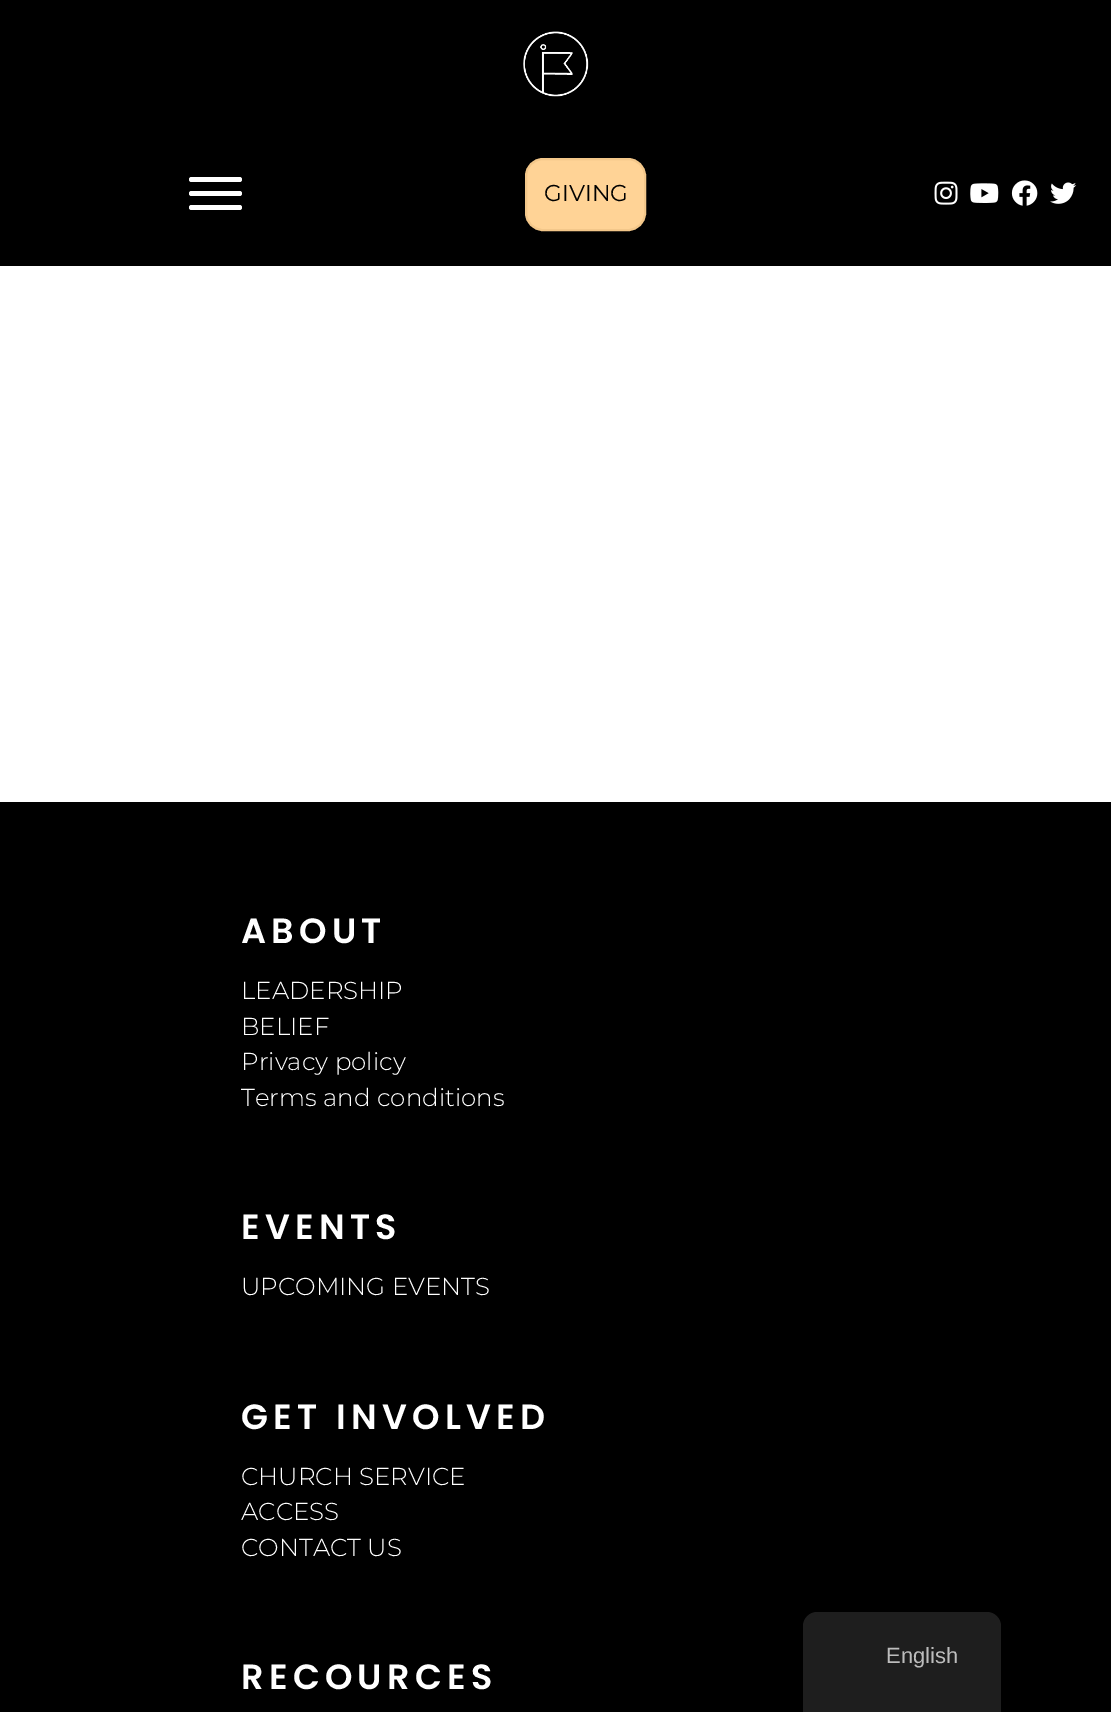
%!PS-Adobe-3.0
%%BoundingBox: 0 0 1111 1712
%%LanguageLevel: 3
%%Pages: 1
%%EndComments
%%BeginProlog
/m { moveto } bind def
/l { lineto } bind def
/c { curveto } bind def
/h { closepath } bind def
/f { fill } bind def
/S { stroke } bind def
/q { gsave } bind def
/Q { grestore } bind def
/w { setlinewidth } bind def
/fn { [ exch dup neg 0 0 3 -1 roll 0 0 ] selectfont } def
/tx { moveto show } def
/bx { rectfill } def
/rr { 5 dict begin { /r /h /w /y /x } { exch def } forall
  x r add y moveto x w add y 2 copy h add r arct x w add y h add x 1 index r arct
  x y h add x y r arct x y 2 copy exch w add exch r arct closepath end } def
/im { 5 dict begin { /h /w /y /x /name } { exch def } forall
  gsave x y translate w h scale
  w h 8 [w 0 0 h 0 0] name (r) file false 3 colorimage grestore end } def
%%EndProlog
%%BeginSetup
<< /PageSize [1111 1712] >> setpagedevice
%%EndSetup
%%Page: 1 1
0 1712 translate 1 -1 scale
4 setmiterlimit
1 setgray
0 0 1111 1712 bx
0 setgray
0 0 1111 266 bx
(image0.raw) 523 31 66 66 im
1 setgray
189 191 53 5 2.5 rr f
189 177 53 5 2.5 rr f
189 205 53 5 2.5 rr f
1 0.827 0.588 setrgbcolor
526 159 119 71 17 rr q f Q
0.953 0.78 0.541 setrgbcolor
2 w
S
/Montserrat-Regular 23 fn
0 setgray
(GIVING) 544 201 tx
(image1.raw) 934 181 24 24 im
(image2.raw) 970 183 29 20 im
(image3.raw) 1011 180 27 26 im
(image4.raw) 1050 182 27 22 im
0 802 1111 910 bx
/Poppins-SemiBold 35 fn
1 setgray
241 943 m 5.25 0 (ABOUT) ashow
/Montserrat-Light 24.5 fn
(LEADERSHIP) 241 999 tx
(BELIEF) 241 1035 tx
(Privacy policy) 241 1070 tx
(Terms and conditions) 241 1106 tx
/Poppins-SemiBold 35 fn
241 1239 m 5.25 0 (EVENTS) ashow
/Montserrat-Light 24.5 fn
(UPCOMING EVENTS) 241 1295 tx
/Poppins-SemiBold 35 fn
241 1429 m 5.25 0 (GET INVOLVED) ashow
/Montserrat-Light 24.5 fn
(CHURCH SERVICE) 241 1485 tx
(ACCESS) 241 1520 tx
(CONTACT US) 241 1556 tx
/Poppins-SemiBold 35 fn
241 1689 m 5.25 0 (RECOURCES) ashow
0.118 setgray
817 1612 m 987 1612 l 994.5 1612 1001 1618.5 1001 1626 c 1001 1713 l 803 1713 l 803 1626 l 803 1618.5 809.5 1612 817 1612 c h f
/LiberationSans-Regular 22 fn
0.741 setgray
(English) 886 1663 tx
showpage
%%EOF
